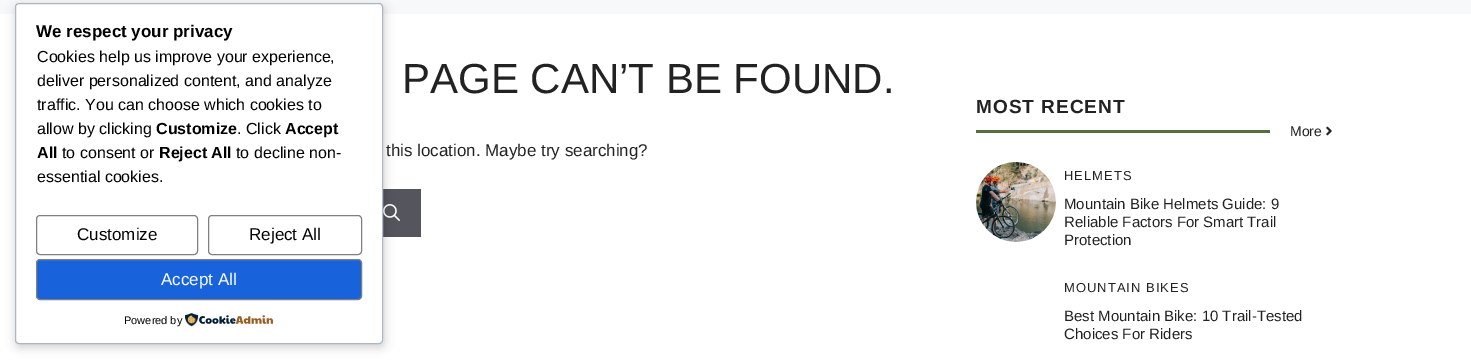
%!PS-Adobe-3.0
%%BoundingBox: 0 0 1471 364
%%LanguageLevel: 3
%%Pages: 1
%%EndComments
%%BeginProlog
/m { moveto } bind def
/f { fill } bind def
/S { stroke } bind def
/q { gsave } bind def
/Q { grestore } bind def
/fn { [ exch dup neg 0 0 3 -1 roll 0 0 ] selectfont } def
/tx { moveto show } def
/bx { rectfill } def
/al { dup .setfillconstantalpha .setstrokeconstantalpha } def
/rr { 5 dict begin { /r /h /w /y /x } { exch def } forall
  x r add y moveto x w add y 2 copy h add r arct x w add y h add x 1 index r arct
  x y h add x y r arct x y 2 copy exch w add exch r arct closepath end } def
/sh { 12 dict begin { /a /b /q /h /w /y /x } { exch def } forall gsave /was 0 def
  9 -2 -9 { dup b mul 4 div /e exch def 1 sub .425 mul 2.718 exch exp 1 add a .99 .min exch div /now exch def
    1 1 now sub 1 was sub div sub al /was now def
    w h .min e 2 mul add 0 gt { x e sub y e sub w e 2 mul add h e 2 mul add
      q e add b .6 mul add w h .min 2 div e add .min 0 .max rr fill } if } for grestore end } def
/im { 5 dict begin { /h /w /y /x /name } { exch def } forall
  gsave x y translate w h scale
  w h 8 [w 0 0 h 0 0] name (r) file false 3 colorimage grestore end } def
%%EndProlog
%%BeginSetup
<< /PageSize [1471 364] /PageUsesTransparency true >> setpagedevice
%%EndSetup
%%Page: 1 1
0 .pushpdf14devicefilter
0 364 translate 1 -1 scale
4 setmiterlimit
1 setgray
0 0 1471 364 bx
0.969 0.973 0.976 setrgbcolor
0 0 1471 14 bx
0.333 0.333 0.369 setrgbcolor
383 189 38 48 bx
(image1.raw) 383 204 17 17 im
0 setgray
16 6 368 341 4 5 0.2 sh
1 setgray
15.5 3.5 367 340 3.5 rr q f Q
0.671 0.722 0.765 setrgbcolor
S
/LiberationSans-Bold 17 fn
0 setgray
(We respect your privacy) 36 37 tx
/LiberationSans-Regular 16 fn
(Cookies help us improve your experience,) 37 62 tx
(deliver personalized content, and analyze) 37 86 tx
(traffic. You can choose which cookies to) 37 110 tx
(allow by clicking) 37 134 tx
/LiberationSans-Bold 16 fn
(Customize) 156 134 tx
/LiberationSans-Regular 16 fn
(. Click) 237 134 tx
/LiberationSans-Bold 16 fn
(Accept) 285 134 tx
(All) 37 158 tx
/LiberationSans-Regular 16 fn
(to consent or) 62 158 tx
/LiberationSans-Bold 16 fn
(Reject All) 159 158 tx
/LiberationSans-Regular 16 fn
(to decline non-) 236 158 tx
(essential cookies.) 37 182 tx
0.502 setgray
36.5 215.5 161 39 3.5 rr S
/LiberationSans-Regular 17 fn
0 setgray
(Customize) 77 240 tx
0.502 setgray
208.5 215.5 153 39 3.5 rr S
0 setgray
(Reject All) 249 240 tx
0.094 0.388 0.863 setrgbcolor
36.5 259.5 325 40 3.5 rr q f Q
0.502 setgray
S
1 setgray
(Accept All) 161 285 tx
/LiberationSans-Regular 11 fn
0 setgray
(Powered by) 124 324 tx
(image0.raw) 185 313 88 14 im
/LiberationSans-Regular 42 fn
0.133 setgray
(PAGE CAN’T BE FOUND.) 402 93 tx
/LiberationSans-Regular 17 fn
(this location. Maybe try searching?) 386 156 tx
/LiberationSans-Bold 19 fn
976 113 m 1 0 (MOST RECENT) ashow
0.337 0.431 0.239 setrgbcolor
976 130 294 3 bx
/LiberationSans-Regular 14 fn
0.133 setgray
(More) 1290 136 tx
(image2.raw) 1326 126 6 10 im
(image3.raw) 976 162 80 80 im
/LiberationSans-Regular 13 fn
1064 180 m 1 0 (HELMETS) ashow
/LiberationSans-Regular 15 fn
(Mountain Bike Helmets Guide: 9) 1064 209 tx
(Reliable Factors For Smart Trail) 1064 227 tx
(Protection) 1064 245 tx
/LiberationSans-Regular 13 fn
1064 292 m 1 0 (MOUNTAIN BIKES) ashow
/LiberationSans-Regular 15 fn
(Best Mountain Bike: 10 Trail-Tested) 1064 321 tx
(Choices For Riders) 1064 339 tx
.poppdf14devicefilter showpage
%%EOF
